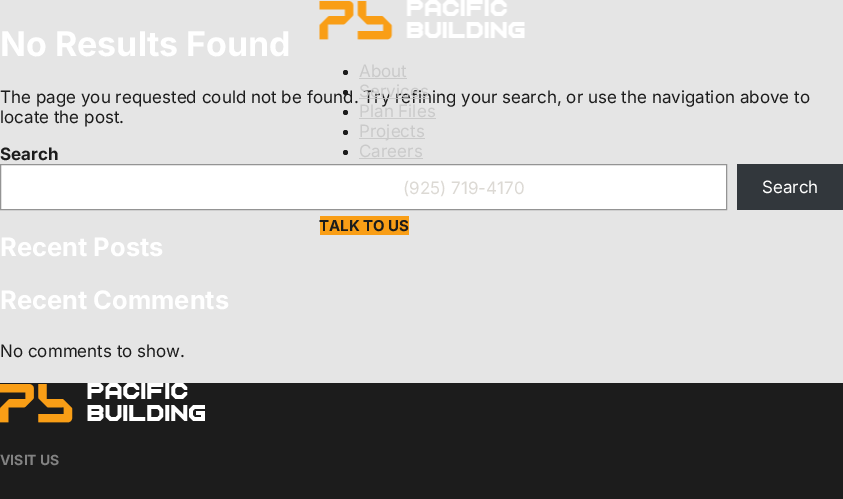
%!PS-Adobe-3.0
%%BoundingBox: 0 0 843 499
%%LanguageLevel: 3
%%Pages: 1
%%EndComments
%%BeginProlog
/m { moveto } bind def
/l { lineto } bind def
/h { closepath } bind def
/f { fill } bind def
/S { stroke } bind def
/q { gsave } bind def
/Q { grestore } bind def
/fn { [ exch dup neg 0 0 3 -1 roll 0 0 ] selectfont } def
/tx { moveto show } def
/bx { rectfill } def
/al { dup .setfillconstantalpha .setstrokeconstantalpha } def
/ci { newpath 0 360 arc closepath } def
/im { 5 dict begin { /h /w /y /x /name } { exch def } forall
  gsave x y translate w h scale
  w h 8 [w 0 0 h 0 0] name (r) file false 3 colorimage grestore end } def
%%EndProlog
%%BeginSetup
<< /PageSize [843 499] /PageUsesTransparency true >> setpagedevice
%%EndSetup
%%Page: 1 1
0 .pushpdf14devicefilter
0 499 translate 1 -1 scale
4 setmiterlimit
0.898 setgray
0 0 843 499 bx
/Inter-Bold 34 fn
1 setgray
(No Results Found) 0 56 tx
/Inter-Regular 17 fn
0.11 setgray
(The page you requested could not be found. Try refining your search, or use the navigation above to) 0 103 tx
(locate the post.) 0 123 tx
/Inter-Bold 17 fn
(Search) 0 160 tx
1 setgray
0.5 164.5 m 726.5 164.5 l 726.5 209.5 l 0.5 209.5 l h q f Q
0.58 setgray
S
0.196 0.216 0.235 setrgbcolor
737 164 106 46 bx
/Inter-Regular 17 fn
1 setgray
(Search) 762 193 tx
/Inter-Bold 25.5 fn
(Recent Posts) 0 256 tx
(Recent Comments) 0 309 tx
/Inter-Regular 17 fn
0.11 setgray
(No comments to show.) 0 357 tx
0 383 843 116 bx
(image0.raw) 0 383 205 40 im
/Inter-Bold 14 fn
0.51 setgray
(VISIT US) 0 465 tx
(image1.raw) 319 0 206 40 im
0.11 setgray
345.5 72.5 2.5 ci f
/Inter-Regular 17 fn
0.792 setgray
(About) 359 77 tx
359 78 48 1 bx
0.11 setgray
345.5 92.5 2.5 ci f
0.792 setgray
(Services) 359 97 tx
0.88 al
0.776 setgray
359 98 70 1 bx
1 al
0.11 setgray
345.5 112.5 2.5 ci f
0.792 setgray
(Plan Files) 359 117 tx
359 118 77 1 bx
0.11 setgray
345.5 132.5 2.5 ci f
0.792 setgray
359 138 66 1 bx
(Projects) 359 137 tx
0.11 setgray
345.5 152.5 2.5 ci f
0.792 setgray
(Careers) 359 157 tx
359 158 64 1 bx
0.863 0.851 0.831 setrgbcolor
(\(925\) 719-4170) 403 194 tx
0.976 0.62 0.086 setrgbcolor
320 216 89 19 bx
/Inter-Bold 15 fn
0.11 setgray
(TALK TO US) 319 231 tx
.poppdf14devicefilter showpage
%%EOF
